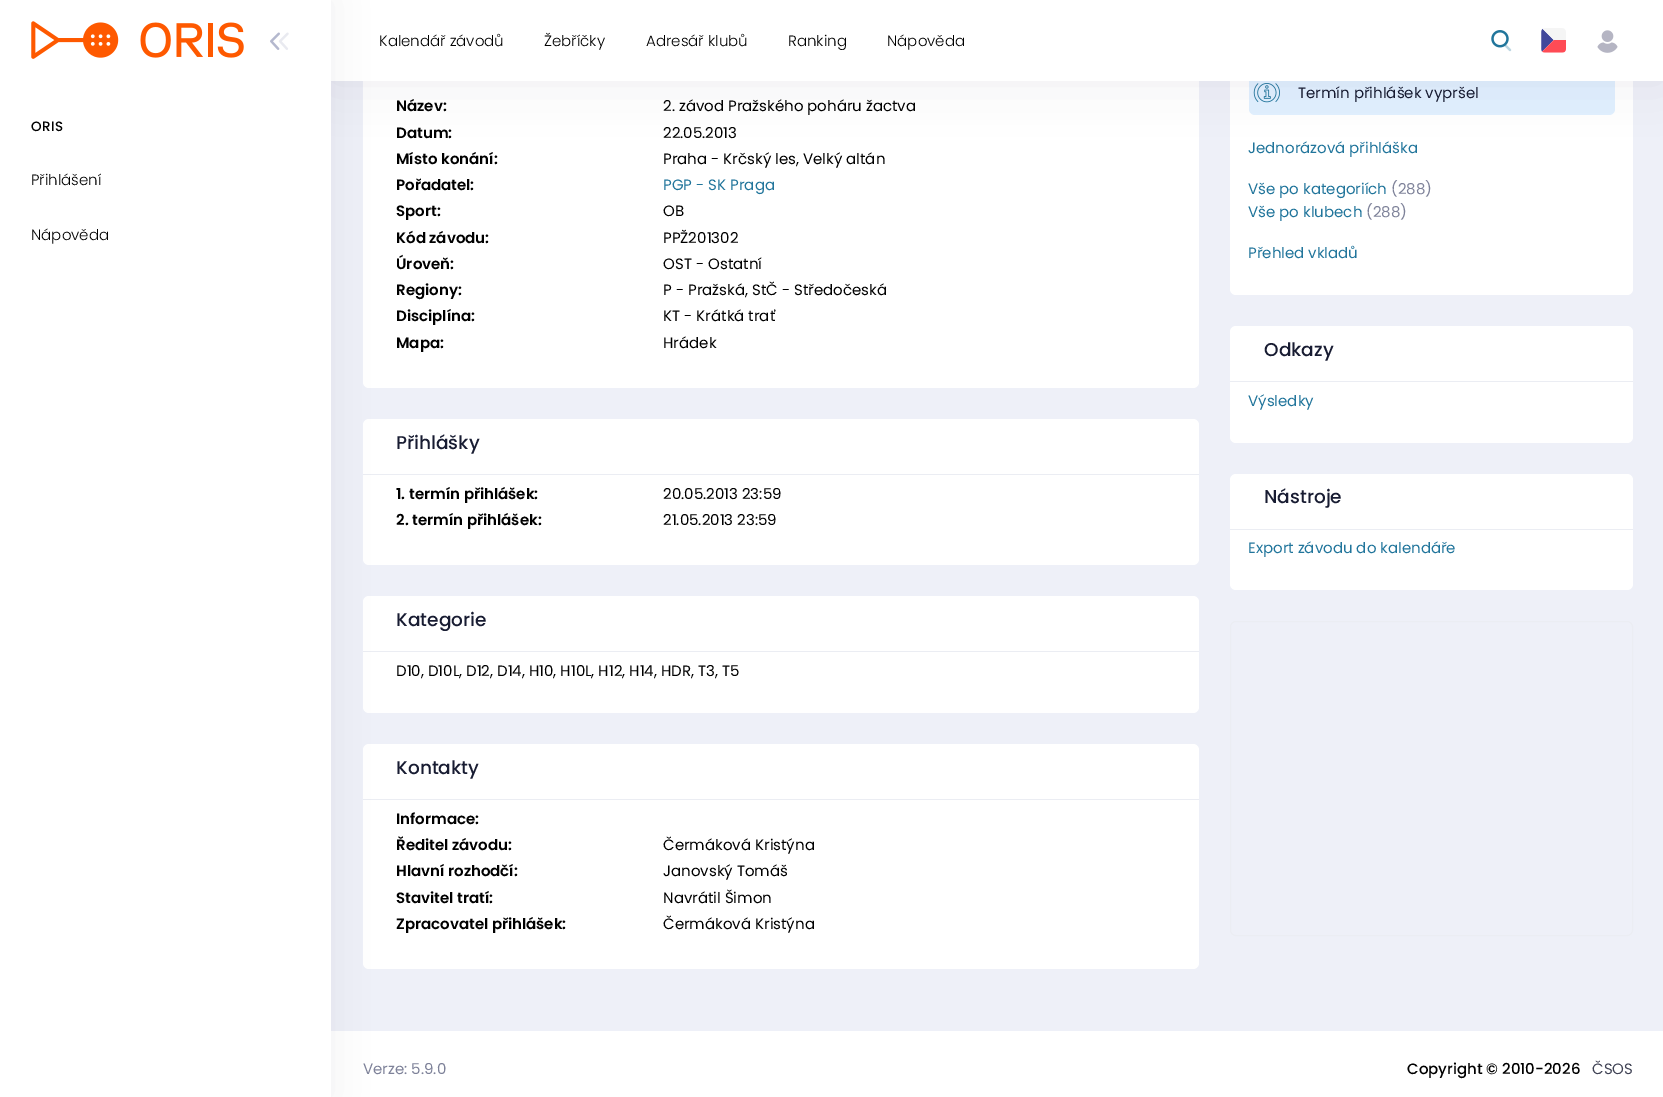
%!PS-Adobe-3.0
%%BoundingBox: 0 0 1663 1097
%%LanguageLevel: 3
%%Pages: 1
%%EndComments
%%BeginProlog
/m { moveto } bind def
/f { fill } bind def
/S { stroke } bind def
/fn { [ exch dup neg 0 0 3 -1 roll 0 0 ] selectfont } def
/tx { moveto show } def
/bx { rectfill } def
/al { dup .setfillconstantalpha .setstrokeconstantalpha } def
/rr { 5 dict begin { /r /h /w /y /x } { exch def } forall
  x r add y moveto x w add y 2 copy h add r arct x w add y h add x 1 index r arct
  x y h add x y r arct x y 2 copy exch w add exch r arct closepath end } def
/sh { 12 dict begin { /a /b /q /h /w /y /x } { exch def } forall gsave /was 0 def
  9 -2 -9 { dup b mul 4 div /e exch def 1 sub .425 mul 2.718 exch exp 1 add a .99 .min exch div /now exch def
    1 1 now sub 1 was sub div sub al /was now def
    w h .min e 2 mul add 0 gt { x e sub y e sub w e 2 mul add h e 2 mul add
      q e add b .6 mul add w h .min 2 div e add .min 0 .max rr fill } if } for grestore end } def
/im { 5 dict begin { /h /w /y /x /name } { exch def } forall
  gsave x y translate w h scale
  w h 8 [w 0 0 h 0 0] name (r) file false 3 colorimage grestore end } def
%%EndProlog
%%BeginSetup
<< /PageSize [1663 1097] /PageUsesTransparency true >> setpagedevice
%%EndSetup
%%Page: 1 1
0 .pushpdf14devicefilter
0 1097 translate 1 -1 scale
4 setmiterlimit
0.933 0.941 0.973 setrgbcolor
0 0 1663 1097 bx
1 setgray
363 5 836 383 6 rr f
1230 5 403 290 6 rr f
0.882 0.941 1 setrgbcolor
1249 73 366 42 6 rr f
(image5.raw) 1253 83 27 20 im
0.322 0.247 0.412 setrgbcolor
331 0 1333 81 0 25 0.1 sh
1 setgray
331 0 1332 81 bx
363 419 836 146 6 rr f
0.922 0.929 0.953 setrgbcolor
363 474 836 1 bx
1 setgray
363 596 836 117 6 rr f
0.922 0.929 0.953 setrgbcolor
363 651 836 1 bx
1 setgray
363 744 836 225 6 rr f
0.922 0.929 0.953 setrgbcolor
363 799 836 1 bx
1 setgray
331 1031 1332 66 bx
0.322 0.247 0.412 setrgbcolor
0 0 331 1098 0 17.5 0.08 sh
1 setgray
0 0 331 1097 bx
(image0.raw) 31 21 213 38 im
(image1.raw) 270 32 19 18 im
/Poppins-Medium 13.5 fn
0 setgray
31 131 m 0.5 0 (ORIS) ashow
/Poppins-Light 15 fn
(Přihlášení) 31 185 tx
(Nápověda) 31 240 tx
(Kalendář závodů) 379 46 tx
(Žebříčky) 544 46 tx
(Adresář klubů) 646 46 tx
(Ranking) 788 46 tx
(Nápověda) 887 46 tx
(image2.raw) 1491 30 21 22 im
(image3.raw) 1541 28 25 25 im
(image4.raw) 1597 30 21 23 im
/Poppins-SemiBold 15 fn
(Název:) 396 111 tx
/Poppins-Regular 15 fn
(2. závod Pražského poháru žactva) 663 111 tx
/Poppins-SemiBold 15 fn
(Datum:) 396 138 tx
/Poppins-Regular 15 fn
(22.05.2013) 663 138 tx
/Poppins-SemiBold 15 fn
(Místo konání:) 396 164 tx
/Poppins-Regular 15 fn
(Praha - Krčský les, Velký altán) 663 164 tx
/Poppins-SemiBold 15 fn
(Pořadatel:) 396 190 tx
/Poppins-Regular 15 fn
0.129 0.459 0.608 setrgbcolor
(PGP - SK Praga) 663 190 tx
/Poppins-SemiBold 15 fn
0 setgray
(Sport:) 396 216 tx
/Poppins-Regular 15 fn
(OB) 663 216 tx
/Poppins-SemiBold 15 fn
(Kód závodu:) 396 243 tx
/Poppins-Regular 15 fn
(PPŽ201302) 663 243 tx
/Poppins-SemiBold 15 fn
(Úroveň:) 396 269 tx
/Poppins-Regular 15 fn
(OST - Ostatní) 663 269 tx
/Poppins-SemiBold 15 fn
(Regiony:) 396 295 tx
/Poppins-Regular 15 fn
(P - Pražská, StČ - Středočeská) 663 295 tx
/Poppins-SemiBold 15 fn
(Disciplína:) 396 321 tx
/Poppins-Regular 15 fn
(KT - Krátká trať) 663 321 tx
/Poppins-SemiBold 15 fn
(Mapa:) 396 348 tx
/Poppins-Regular 15 fn
(Hrádek) 663 348 tx
/Poppins-Medium 18.5 fn
0.094 0.11 0.196 setrgbcolor
(Přihlášky) 396 449 tx
/Poppins-SemiBold 15 fn
0 setgray
(1. termín přihlášek:) 396 499 tx
/Poppins-Regular 15 fn
(20.05.2013 23:59) 663 499 tx
/Poppins-SemiBold 15 fn
(2. termín přihlášek:) 396 525 tx
/Poppins-Regular 15 fn
(21.05.2013 23:59) 663 525 tx
/Poppins-Medium 18.5 fn
0.094 0.11 0.196 setrgbcolor
(Kategorie) 396 626 tx
/Poppins-Regular 15 fn
0 setgray
(D10, D10L, D12, D14, H10, H10L, H12, H14, HDR, T3, T5) 396 676 tx
/Poppins-Medium 18.5 fn
0.094 0.11 0.196 setrgbcolor
(Kontakty) 396 774 tx
/Poppins-SemiBold 15 fn
0 setgray
(Informace:) 396 824 tx
(Ředitel závodu:) 396 850 tx
/Poppins-Regular 15 fn
(Čermáková Kristýna) 663 850 tx
/Poppins-SemiBold 15 fn
(Hlavní rozhodčí:) 396 876 tx
/Poppins-Regular 15 fn
(Janovský Tomáš) 663 876 tx
/Poppins-SemiBold 15 fn
(Stavitel tratí:) 396 903 tx
/Poppins-Regular 15 fn
(Navrátil Šimon) 663 903 tx
/Poppins-SemiBold 15 fn
(Zpracovatel přihlášek:) 396 929 tx
/Poppins-Regular 15 fn
(Čermáková Kristýna) 663 929 tx
0.094 0.11 0.196 setrgbcolor
(Termín přihlášek vypršel) 1298 98 tx
0.129 0.459 0.608 setrgbcolor
(Jednorázová přihláška) 1248 153 tx
(Vše po kategoriích) 1248 194 tx
0.494 0.51 0.6 setrgbcolor
(\(288\)) 1391 194 tx
0.129 0.459 0.608 setrgbcolor
(Vše po klubech) 1248 217 tx
0.494 0.51 0.6 setrgbcolor
(\(288\)) 1366 217 tx
0.129 0.459 0.608 setrgbcolor
(Přehled vkladů) 1248 258 tx
1 setgray
1230 326 403 117 6 rr f
0.922 0.929 0.953 setrgbcolor
1230 381 403 1 bx
/Poppins-Medium 18.5 fn
0.094 0.11 0.196 setrgbcolor
(Odkazy) 1264 356 tx
/Poppins-Regular 15 fn
0.129 0.459 0.608 setrgbcolor
(Výsledky) 1248 406 tx
1 setgray
1230 474 403 116 6 rr f
0.922 0.929 0.953 setrgbcolor
1230 529 403 1 bx
/Poppins-Medium 18.5 fn
0.094 0.11 0.196 setrgbcolor
(Nástroje) 1264 503 tx
/Poppins-Regular 15 fn
0.129 0.459 0.608 setrgbcolor
(Export závodu do kalendáře) 1248 553 tx
0.922 0.929 0.953 setrgbcolor
1230.5 621.5 402 314 5.5 rr S
0.494 0.51 0.6 setrgbcolor
(Verze: 5.9.0) 363 1074 tx
/Poppins-Medium 15 fn
0 setgray
(Copyright © 2010-2026) 1407 1074 tx
/Poppins-Regular 15 fn
0.247 0.259 0.329 setrgbcolor
(ČSOS) 1592 1074 tx
.poppdf14devicefilter showpage
%%EOF
